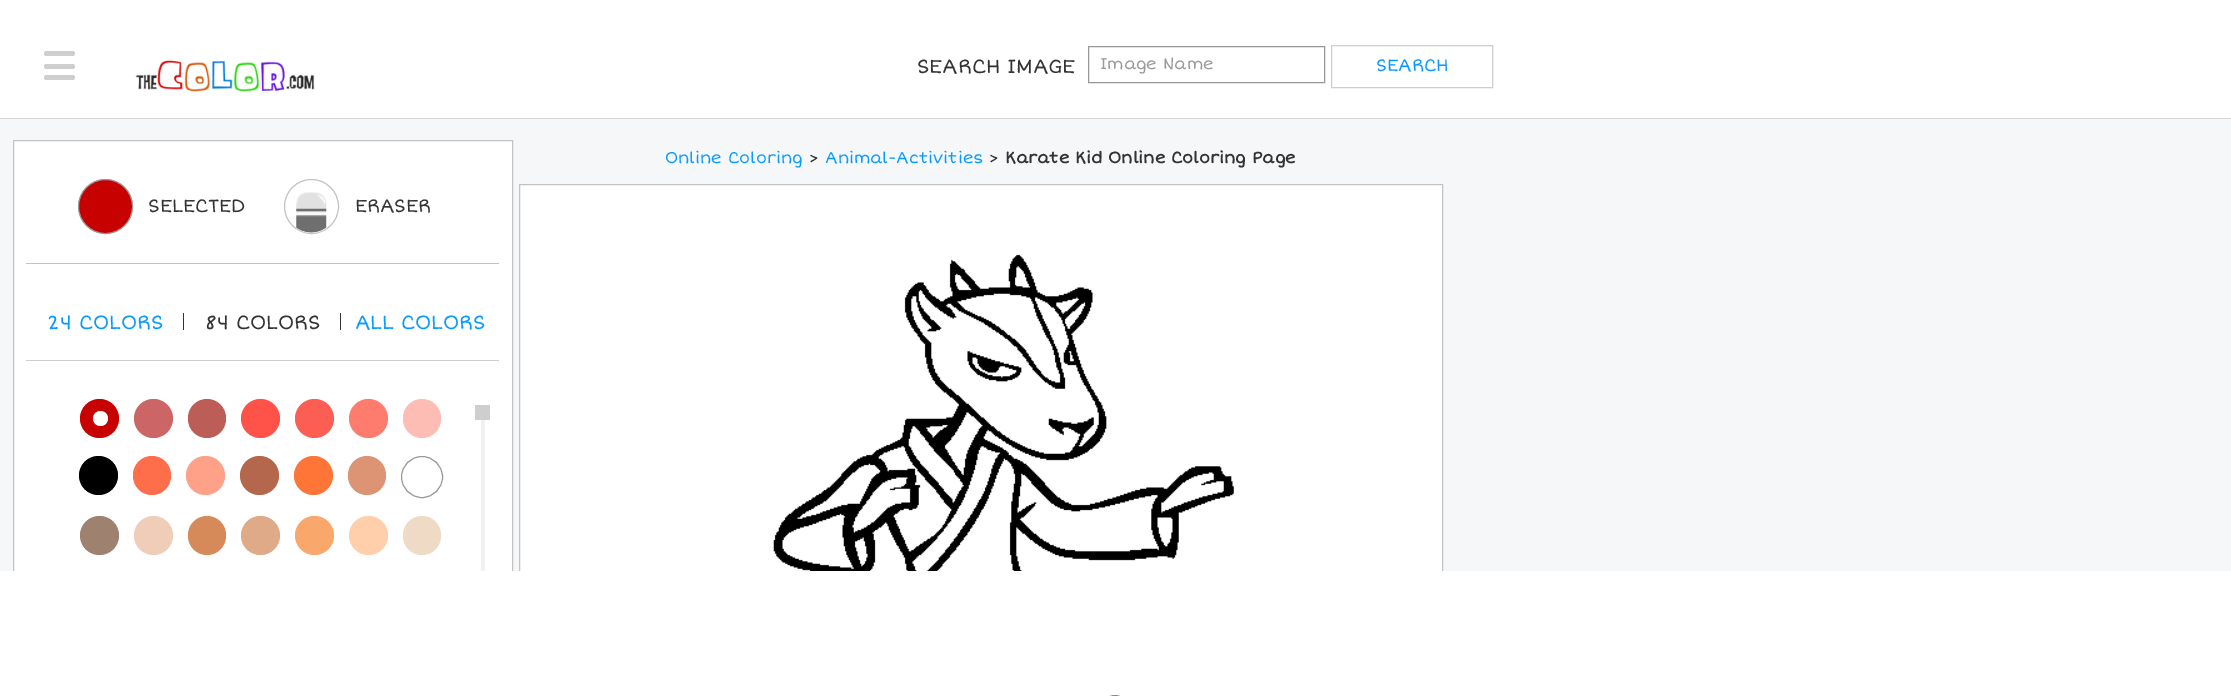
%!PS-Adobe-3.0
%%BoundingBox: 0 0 2231 696
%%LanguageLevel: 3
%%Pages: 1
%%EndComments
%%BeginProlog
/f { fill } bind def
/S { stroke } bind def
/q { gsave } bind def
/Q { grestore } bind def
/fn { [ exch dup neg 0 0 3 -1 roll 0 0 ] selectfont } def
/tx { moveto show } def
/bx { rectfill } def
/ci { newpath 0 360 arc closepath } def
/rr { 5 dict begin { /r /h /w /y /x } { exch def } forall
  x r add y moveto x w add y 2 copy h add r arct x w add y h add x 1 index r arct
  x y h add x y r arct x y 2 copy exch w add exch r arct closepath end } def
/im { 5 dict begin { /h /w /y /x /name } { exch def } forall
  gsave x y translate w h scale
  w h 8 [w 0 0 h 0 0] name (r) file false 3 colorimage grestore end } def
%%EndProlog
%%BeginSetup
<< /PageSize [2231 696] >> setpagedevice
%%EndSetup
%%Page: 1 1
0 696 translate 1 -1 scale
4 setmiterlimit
0.965 0.969 0.976 setrgbcolor
0 0 2231 696 bx
1 setgray
0 0 2231 118 bx
0.843 setgray
0 118 2231 1 bx
0.808 setgray
44 51 31 5 2.5 rr f
44 64 31 5 2.5 rr f
44 75 31 5 2.5 rr f
(image0.raw) 135 60 180 32 im
/ShortStack-Regular 20 fn
0.2 setgray
(SEARCH IMAGE) 917 73 tx
0.6 setgray
1088.5 46.5 236 36 rectstroke
/ShortStack-Regular 16.25 fn
(Image Name) 1100 69 tx
0.808 setgray
1331.5 45.5 161 42 rectstroke
/ShortStack-Regular 17.5 fn
0.035 0.604 1 setrgbcolor
(SEARCH) 1376 71 tx
/ShortStack-Regular 16.25 fn
(Online Coloring) 665 163 tx
0.2 setgray
(>) 809 163 tx
0.035 0.604 1 setrgbcolor
(Animal-Activities) 825 163 tx
0.2 setgray
(>) 989 163 tx
/ShortStack-Bold 16.25 fn
(Karate Kid Online Coloring Page) 1005 163 tx
1 setgray
520 185 922 386 bx
0.765 setgray
519.5 184.5 923 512 rectstroke
(image1.raw) 773 254 461 317 im
1 setgray
14 141 498 430 bx
0.765 setgray
13.5 140.5 499 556 rectstroke
26 263 473 1 bx
0.78 0 0 setrgbcolor
105.5 206.5 27 ci q f Q
0.6 setgray
S
/ShortStack-Regular 18.75 fn
0.2 setgray
(SELECTED) 148 212 tx
0.765 setgray
311.5 206.5 27 ci S
(image2.raw) 296 192 31 41 im
0.2 setgray
(ERASER) 355 212 tx
0.808 setgray
26 360 473 1 bx
/ShortStack-Regular 20 fn
0.035 0.604 1 setrgbcolor
(24 COLORS) 47 329 tx
0.2 setgray
183 313 1 17 bx
(84 COLORS) 205 329 tx
340 313 1 17 bx
0.035 0.604 1 setrgbcolor
(ALL COLORS) 355 329 tx
0.78 0 0 setrgbcolor
99.5 418.5 19.5 ci f
1 setgray
100.5 418.5 7.5 ci f
0.8 0.4 0.4 setrgbcolor
153.5 418.5 19.5 ci f
0.737 0.365 0.345 setrgbcolor
188 399 38 39 19 rr f
1 0.325 0.286 setrgbcolor
260.5 418.5 19.5 ci f
0.992 0.369 0.325 setrgbcolor
314.5 418.5 19.5 ci f
0.992 0.486 0.431 setrgbcolor
368.5 418.5 19.5 ci f
0.992 0.737 0.706 setrgbcolor
403 399 38 39 19 rr f
0 setgray
98.5 475.5 19.5 ci f
1 0.431 0.29 setrgbcolor
133 456 38 39 19 rr f
1 0.627 0.537 setrgbcolor
205.5 475.5 19.5 ci f
0.706 0.404 0.302 setrgbcolor
259.5 475.5 19.5 ci f
1 0.459 0.22 setrgbcolor
313.5 475.5 19.5 ci f
0.867 0.58 0.459 setrgbcolor
348 456 38 39 19 rr f
0.6 setgray
422 477 20.5 ci S
0.624 0.506 0.439 setrgbcolor
99.5 535.5 19.5 ci f
0.937 0.804 0.722 setrgbcolor
153.5 535.5 19.5 ci f
0.839 0.541 0.349 setrgbcolor
188 516 38 39 19 rr f
0.871 0.667 0.533 setrgbcolor
260.5 535.5 19.5 ci f
0.98 0.655 0.424 setrgbcolor
314.5 535.5 19.5 ci f
1 0.812 0.671 setrgbcolor
368.5 535.5 19.5 ci f
0.937 0.859 0.773 setrgbcolor
403 516 38 39 19 rr f
0.945 setgray
481 420 4 151 bx
0.808 setgray
475 405 15 15 bx
1 setgray
0 571 2231 125 bx
0.976 setgray
1101.5 695.5 27 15 13.5 rr S
0.533 setgray
1101.5 695.5 27 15 13.5 rr S
showpage
%%EOF
